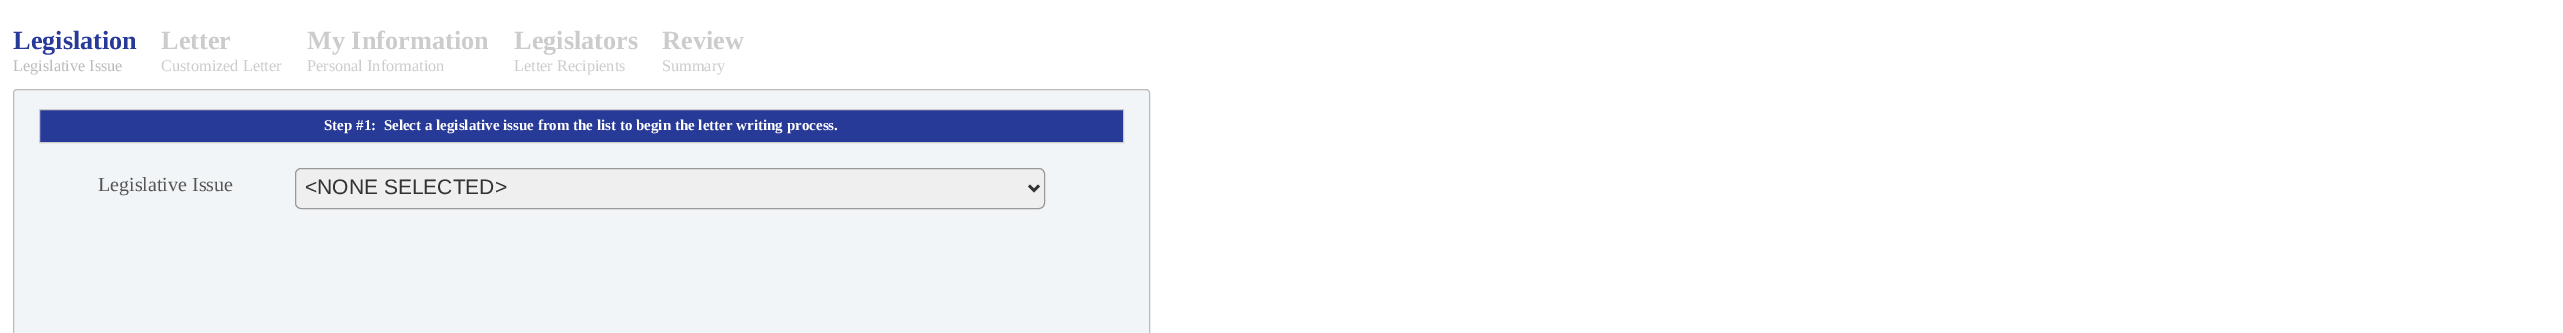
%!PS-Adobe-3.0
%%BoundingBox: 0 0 2563 333
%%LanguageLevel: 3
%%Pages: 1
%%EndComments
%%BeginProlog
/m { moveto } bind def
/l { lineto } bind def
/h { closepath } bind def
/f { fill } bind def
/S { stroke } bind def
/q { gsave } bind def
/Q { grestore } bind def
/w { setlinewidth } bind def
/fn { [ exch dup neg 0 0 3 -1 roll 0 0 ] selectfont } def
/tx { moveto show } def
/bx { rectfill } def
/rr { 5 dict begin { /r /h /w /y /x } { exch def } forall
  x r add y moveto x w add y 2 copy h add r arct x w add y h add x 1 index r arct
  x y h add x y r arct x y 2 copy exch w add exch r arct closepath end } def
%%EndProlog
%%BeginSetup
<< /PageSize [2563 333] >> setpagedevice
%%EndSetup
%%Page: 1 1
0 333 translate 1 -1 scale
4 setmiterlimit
1 setgray
0 0 2563 333 bx
/LiberationSerif-Bold 26.25 fn
0.157 0.227 0.592 setrgbcolor
(Legislation) 13 49 tx
/LiberationSerif-Regular 16.25 fn
0.733 setgray
(Legislative Issue) 13 71 tx
/LiberationSerif-Bold 26.25 fn
0.8 setgray
(Letter) 161 49 tx
/LiberationSerif-Regular 16.25 fn
(Customized Letter) 161 71 tx
/LiberationSerif-Bold 26.25 fn
(My Information) 307 49 tx
/LiberationSerif-Regular 16.25 fn
(Personal Information) 307 71 tx
/LiberationSerif-Bold 26.25 fn
(Legislators) 514 49 tx
/LiberationSerif-Regular 16.25 fn
(Letter Recipients) 514 71 tx
/LiberationSerif-Bold 26.25 fn
(Review) 662 49 tx
/LiberationSerif-Regular 16.25 fn
(Summary) 662 71 tx
0.949 0.961 0.969 setrgbcolor
13.5 89.5 1136 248 3.5 rr q f Q
0.733 setgray
S
0.157 0.227 0.592 setrgbcolor
39.5 109.5 m 1123.5 109.5 l 1123.5 142.5 l 39.5 142.5 l h q f Q
0.8 setgray
S
/LiberationSerif-Bold 15 fn
1 setgray
(Step #1:  Select a legislative issue from the list to begin the letter writing process.) 324 130 tx
/LiberationSerif-Regular 20 fn
0.333 setgray
(Legislative Issue) 98 191 tx
0.937 setgray
295.5 168.5 749 40 5.5 rr q f Q
0.6 setgray
S
0.2 setgray
2.5 w
1029 185.5 m 1034 190.5 l 1039 185.5 l S
/LiberationSans-Regular 21 fn
(<NONE SELECTED>) 305 194 tx
showpage
%%EOF
